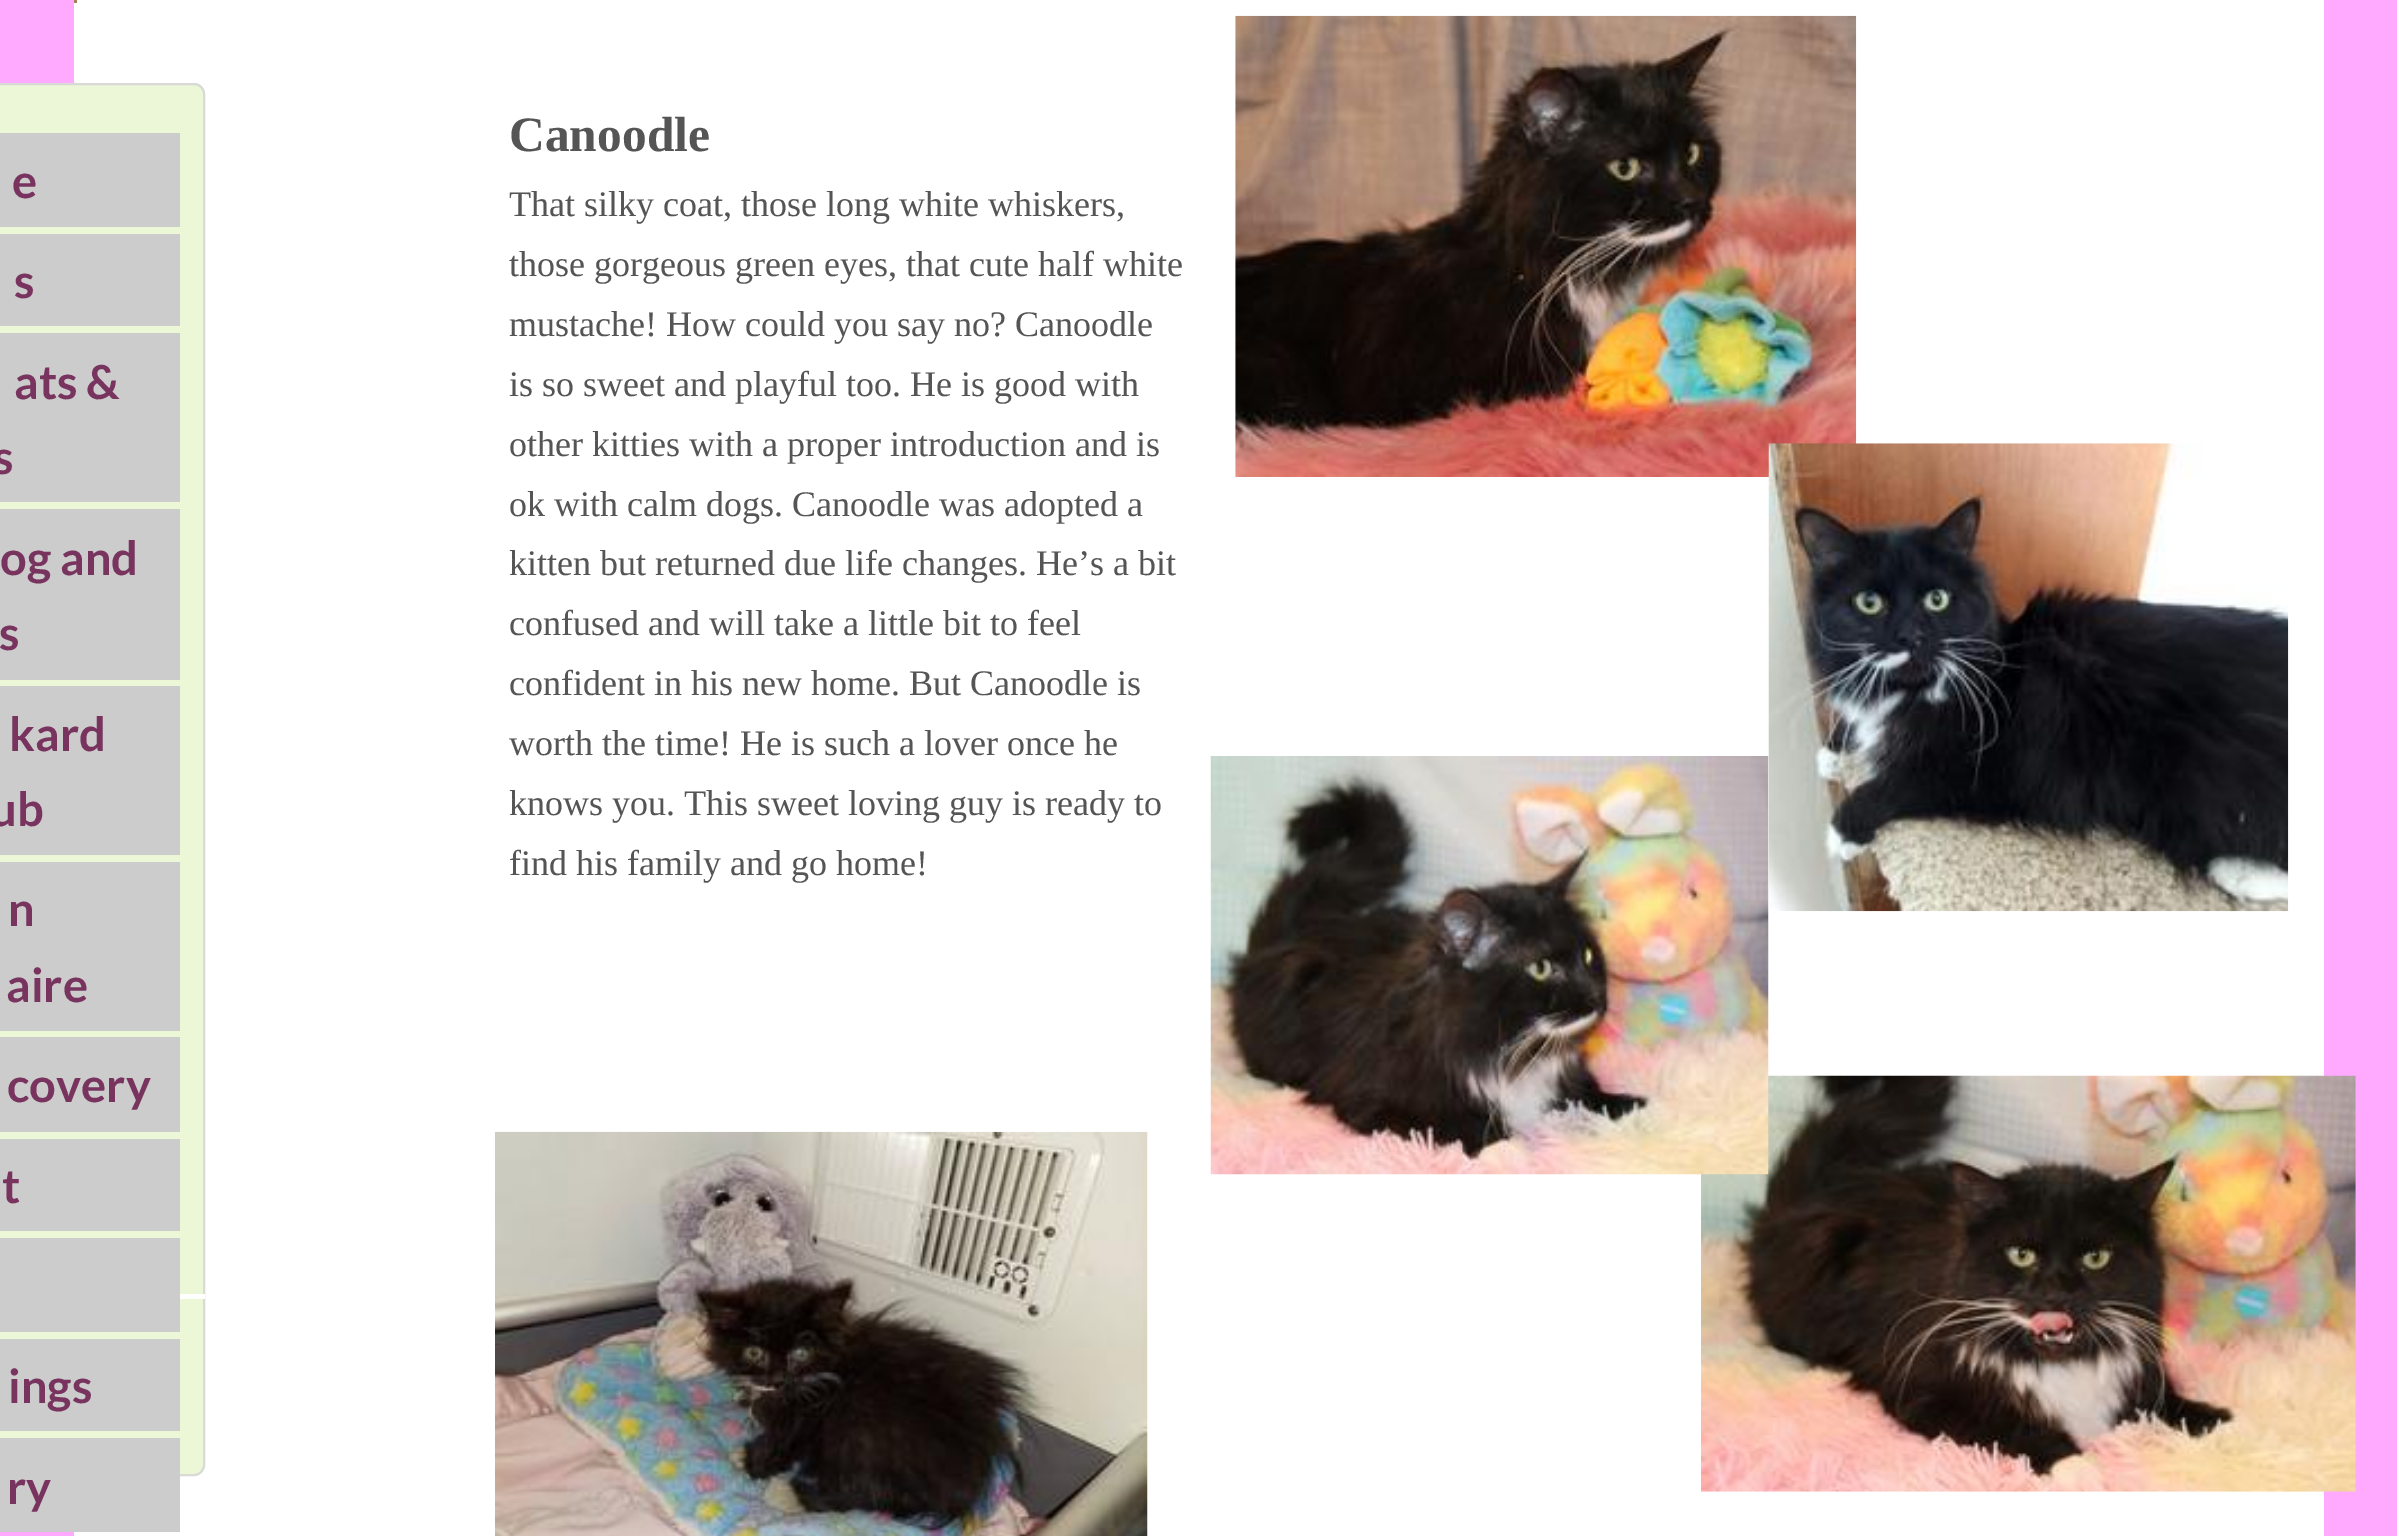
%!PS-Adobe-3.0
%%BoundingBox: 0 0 2397 1536
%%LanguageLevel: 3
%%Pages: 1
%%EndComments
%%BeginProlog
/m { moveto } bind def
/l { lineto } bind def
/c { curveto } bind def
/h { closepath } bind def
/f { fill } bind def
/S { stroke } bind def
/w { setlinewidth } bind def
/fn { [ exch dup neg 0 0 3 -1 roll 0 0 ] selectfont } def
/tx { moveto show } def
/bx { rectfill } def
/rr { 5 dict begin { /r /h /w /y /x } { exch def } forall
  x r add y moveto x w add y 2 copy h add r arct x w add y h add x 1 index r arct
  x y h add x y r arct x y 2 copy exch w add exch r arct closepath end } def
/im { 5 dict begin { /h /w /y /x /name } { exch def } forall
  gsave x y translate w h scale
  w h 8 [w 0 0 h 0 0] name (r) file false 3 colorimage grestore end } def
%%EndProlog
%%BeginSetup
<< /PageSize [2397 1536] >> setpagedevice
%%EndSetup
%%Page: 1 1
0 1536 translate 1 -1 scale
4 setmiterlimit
1 0.667 1 setrgbcolor
0 0 2397 1536 bx
1 setgray
74 0 2250 1536 bx
0.639 0.506 0.329 setrgbcolor
74 0 3 3 bx
0.922 0.969 0.839 setrgbcolor
0 83 m 194 83 l 200 83 205 88 205 94 c 205 1465 l 205 1471 200 1476 194 1476 c 0 1476 l h f
0.851 0.851 0.847 setrgbcolor
2 w
-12 84 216 1391 10 rr S
/LiberationSerif-Bold 49.5 fn
0.333 setgray
(Canoodle) 509 151 tx
/LiberationSerif-Regular 36 fn
(That silky coat, those long white whiskers,) 509 216 tx
(those gorgeous green eyes, that cute half white) 509 276 tx
(mustache! How could you say no? Canoodle) 509 336 tx
(is so sweet and playful too. He is good with) 509 396 tx
(other kitties with a proper introduction and is) 509 456 tx
(ok with calm dogs. Canoodle was adopted a) 509 516 tx
(kitten but returned due life changes. He’s a bit) 509 575 tx
(confused and will take a little bit to feel) 509 635 tx
(confident in his new home. But Canoodle is) 509 695 tx
(worth the time! He is such a lover once he) 509 755 tx
(knows you. This sweet loving guy is ready to) 509 815 tx
(find his family and go home!) 509 875 tx
(image0.raw) 1235 15 622 462 im
0.8 setgray
0 133 180 94 bx
/Lato-Bold 47 fn
0.471 0.204 0.369 setrgbcolor
(e) 12 198 tx
0.8 setgray
0 234 180 92 bx
0.471 0.204 0.369 setrgbcolor
(s) 14 298 tx
0.8 setgray
0 333 180 169 bx
0.471 0.204 0.369 setrgbcolor
(ats &) 14 399 tx
(s) -7 474 tx
0.8 setgray
0 509 180 171 bx
0.471 0.204 0.369 setrgbcolor
(og and) 0 575 tx
(s) -1 650 tx
0.8 setgray
0 686 180 169 bx
0.471 0.204 0.369 setrgbcolor
(kard) 9 751 tx
(ub) -10 826 tx
0.8 setgray
0 862 180 169 bx
0.471 0.204 0.369 setrgbcolor
(n) 8 926 tx
(aire) 6 1002 tx
0.8 setgray
0 1037 180 95 bx
0.471 0.204 0.369 setrgbcolor
(covery) 7 1102 tx
0.8 setgray
0 1139 180 92 bx
0.471 0.204 0.369 setrgbcolor
(t) 2 1203 tx
0.8 setgray
0 1238 180 94 bx
0 1339 180 92 bx
0.471 0.204 0.369 setrgbcolor
(ings) 8 1403 tx
0.8 setgray
0 1438 180 94 bx
0.471 0.204 0.369 setrgbcolor
(ry) 7 1504 tx
(image4.raw) 1701 1075 655 417 im
(image2.raw) 1210 756 559 419 im
(image1.raw) 1768 443 521 469 im
1 setgray
180 1294 25 5 bx
(image3.raw) 495 1131 653 405 im
showpage
%%EOF
